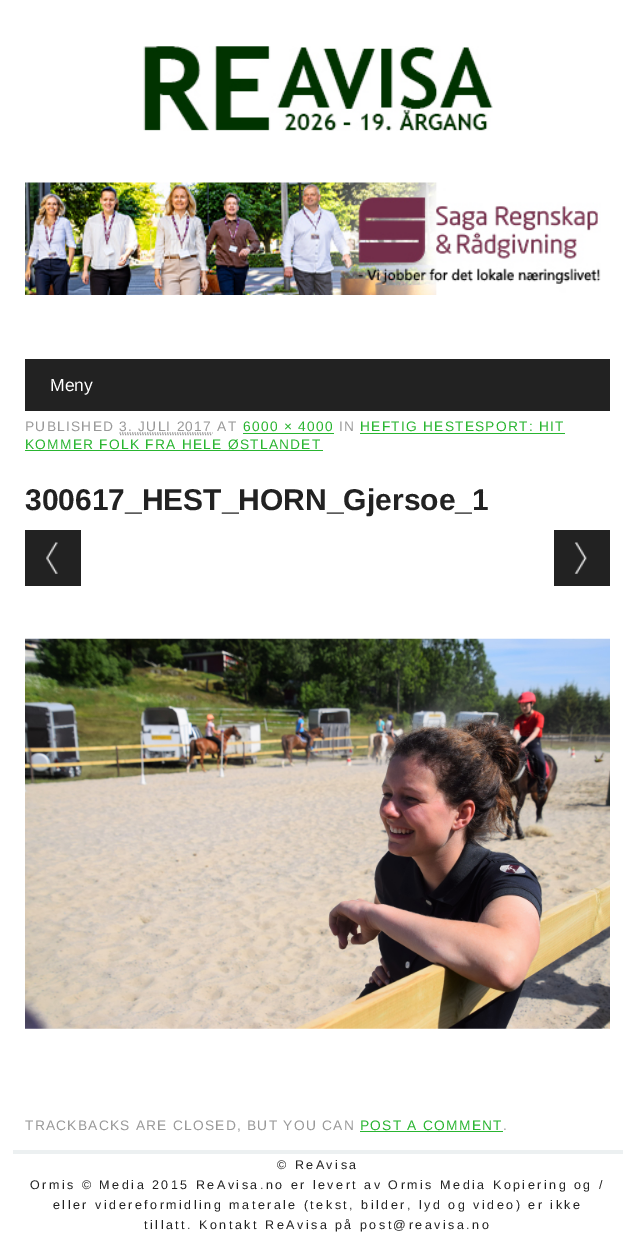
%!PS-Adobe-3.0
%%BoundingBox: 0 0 635 1237
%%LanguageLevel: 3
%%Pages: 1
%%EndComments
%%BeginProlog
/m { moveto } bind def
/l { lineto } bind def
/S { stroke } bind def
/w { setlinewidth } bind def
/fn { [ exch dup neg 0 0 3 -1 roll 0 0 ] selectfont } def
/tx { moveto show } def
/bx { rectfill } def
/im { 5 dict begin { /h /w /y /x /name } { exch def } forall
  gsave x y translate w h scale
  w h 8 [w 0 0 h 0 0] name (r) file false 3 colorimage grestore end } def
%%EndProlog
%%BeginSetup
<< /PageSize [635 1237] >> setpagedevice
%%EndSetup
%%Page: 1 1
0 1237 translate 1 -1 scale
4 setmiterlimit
1 setgray
0 0 635 1237 bx
(image0.raw) 143 46 350 85 im
(image1.raw) 25 182 576 113 im
0.133 setgray
25 359 585 52 bx
/LiberationSans-Regular 17.5 fn
1 setgray
(Meny) 50 391 tx
/LiberationSans-Regular 13.75 fn
0.6 setgray
25 431 m 1.25 0 (PUBLISHED 3. JULI 2017 AT) ashow
0.161 0.71 0.188 setrgbcolor
243 431 m 1.25 0 (6000 × 4000) ashow
243 433 91 1 bx
0.6 setgray
339 431 m 1.25 0 (IN) ashow
0.161 0.71 0.188 setrgbcolor
360 431 m 1.25 0 (HEFTIG HESTESPORT: HIT) ashow
360 433 205 1 bx
0.6 setgray
1.2 w
[1.25 1.25] 0 setdash
120 434.5 m 212.5 434.5 l S
119.5 433 m 212.5 433 l S
0.161 0.71 0.188 setrgbcolor
25 449 m 1.25 0 (KOMMER FOLK FRA HELE ØSTLANDET) ashow
25 450 298 1 bx
/LiberationSans-Bold 30 fn
0.133 setgray
(300617_HEST_HORN_Gjersoe_1) 25 510 tx
25 530 56 56 bx
(image2.raw) 46 542 12 32 im
554 530 56 56 bx
(image3.raw) 574 542 13 32 im
(image4.raw) 25 638 585 391 im
/LiberationSans-Regular 13.75 fn
0.6 setgray
25 1130 m 1.25 0 (TRACKBACKS ARE CLOSED, BUT YOU CAN) ashow
0.161 0.71 0.188 setrgbcolor
360 1130 m 1.25 0 (POST A COMMENT) ashow
360 1131 143 1 bx
0.6 setgray
503 1130 m 1.25 0 (.) ashow
0.925 0.941 0.945 setrgbcolor
13 1150 610 4 bx
/LiberationSans-Regular 12.5 fn
0.133 setgray
277 1169 m 2.5 0 (© ReAvisa) ashow
30 1189 m 2.5 0 (Ormis © Media 2015 ReAvisa.no er levert av Ormis Media Kopiering og /) ashow
53 1209 m 2.5 0 (eller videreformidling materale \(tekst, bilder, lyd og video\) er ikke) ashow
144 1229 m 2.5 0 (tillatt. Kontakt ReAvisa på post@reavisa.no) ashow
showpage
%%EOF
